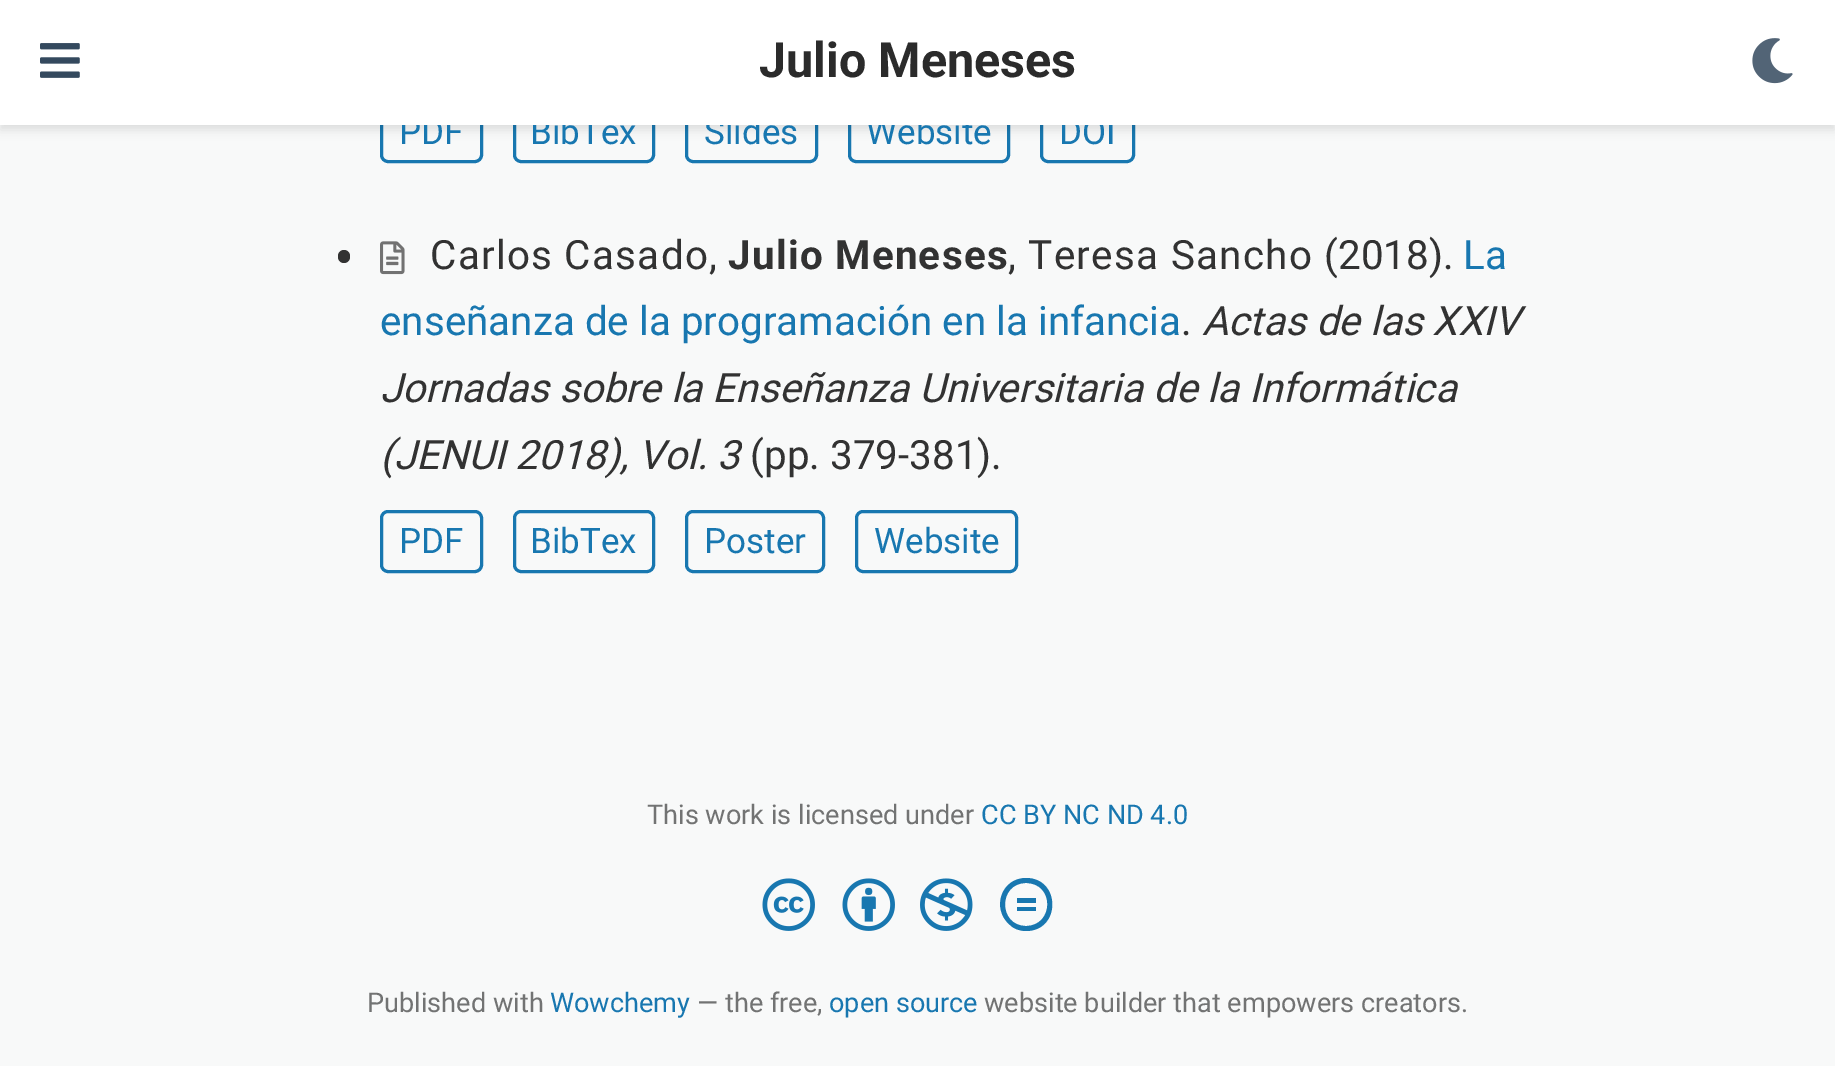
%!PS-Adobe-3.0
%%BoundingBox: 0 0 1835 1066
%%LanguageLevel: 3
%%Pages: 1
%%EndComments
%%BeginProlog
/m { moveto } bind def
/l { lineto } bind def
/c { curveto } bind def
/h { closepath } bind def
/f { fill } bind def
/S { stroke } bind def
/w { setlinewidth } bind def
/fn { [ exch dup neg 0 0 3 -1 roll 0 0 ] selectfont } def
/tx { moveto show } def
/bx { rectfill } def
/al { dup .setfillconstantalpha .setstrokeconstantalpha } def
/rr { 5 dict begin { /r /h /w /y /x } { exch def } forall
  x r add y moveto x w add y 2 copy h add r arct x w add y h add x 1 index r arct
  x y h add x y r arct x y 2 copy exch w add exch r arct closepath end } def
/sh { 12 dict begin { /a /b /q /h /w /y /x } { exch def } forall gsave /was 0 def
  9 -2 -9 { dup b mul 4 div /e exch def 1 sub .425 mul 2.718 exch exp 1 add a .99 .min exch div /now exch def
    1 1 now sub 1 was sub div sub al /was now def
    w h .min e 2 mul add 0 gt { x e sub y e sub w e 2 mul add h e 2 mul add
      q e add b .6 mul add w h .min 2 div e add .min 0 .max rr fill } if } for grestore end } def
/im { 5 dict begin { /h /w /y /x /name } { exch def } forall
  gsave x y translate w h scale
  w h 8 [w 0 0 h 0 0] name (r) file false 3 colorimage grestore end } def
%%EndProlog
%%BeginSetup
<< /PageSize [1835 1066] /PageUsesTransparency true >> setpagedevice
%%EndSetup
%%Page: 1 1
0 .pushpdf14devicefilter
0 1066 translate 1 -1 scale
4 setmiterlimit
0.973 0.976 0.976 setrgbcolor
0 0 1835 1066 bx
0.094 0.467 0.69 setrgbcolor
3 w
381.5 104.5 100 57 6.5 rr S
514.5 104.5 139 57 6.5 rr S
686.5 104.5 130 57 6.5 rr S
849.5 104.5 159 57 6.5 rr S
1041.5 104.5 92 57 6.5 rr S
0 setgray
0 5 1835 125 0 5 0.11 sh
/Roboto-Regular 35 fn
0.094 0.467 0.69 setrgbcolor
(PDF) 399 144 tx
(BibTex) 530 144 tx
(Slides) 704 144 tx
(Website) 866 144 tx
(DOI) 1059 144 tx
1 setgray
0 0 1835 125 bx
(image0.raw) 40 43 40 35 im
/Roboto-Bold 48.5 fn
0.169 setgray
(Julio Meneses) 759 77 tx
(image1.raw) 1752 38 41 46 im
0.196 setgray
338 250 12 13 6 rr f
(image2.raw) 380 241 25 34 im
/Roboto-Regular 40.4 fn
430 269 m 1.25 0 (Carlos Casado,) ashow
/Roboto-Bold 40.4 fn
728 269 m 1.25 0 (Julio Meneses) ashow
/Roboto-Regular 40.4 fn
1008 269 m 1.25 0 (, Teresa Sancho) ashow
(\(2018\).) 1324 269 tx
0.094 0.467 0.69 setrgbcolor
(La) 1463 269 tx
(enseñanza de la programación en la infancia) 380 335 tx
0.196 setgray
(.) 1181 335 tx
/Roboto-Italic 40.4 fn
(Actas de las XXIV) 1202 335 tx
(Jornadas sobre la Enseñanza Universitaria de la Informática) 380 402 tx
(\(JENUI 2018\), Vol. 3) 380 469 tx
/Roboto-Regular 40.4 fn
(\(pp. 379-381\).) 750 469 tx
0.094 0.467 0.69 setrgbcolor
381.5 511.5 100 60 6.5 rr S
/Roboto-Regular 35 fn
(PDF) 399 553 tx
514.5 511.5 139 60 6.5 rr S
(BibTex) 530 553 tx
686.5 511.5 137 60 6.5 rr S
(Poster) 704 553 tx
856.5 511.5 160 60 6.5 rr S
(Website) 874 553 tx
/Roboto-Regular 27.1 fn
0.447 0.451 0.451 setrgbcolor
(This work is licensed under) 647 824 tx
0.094 0.467 0.69 setrgbcolor
(CC BY NC ND 4.0) 981 824 tx
(image3.raw) 762 878 53 53 im
(image4.raw) 842 878 53 53 im
(image5.raw) 920 878 53 53 im
1026 878 m 1061 878 1061 931 1026 931 c 1020 931 1014 929 1010 925 c 991 909 1001 878 1026 878 c h 1026 883 m 998 883 998 926 1026 926 c 1054 926 1055 883 1026 883 c h 1036 898 m 1036 903 l 1017 903 l 1017 898 l h 1036 907 m 1036 911 l 1017 911 l 1017 907 l h f
0.447 0.451 0.451 setrgbcolor
(Published with) 367 1012 tx
0.094 0.467 0.69 setrgbcolor
(Wowchemy) 550 1012 tx
0.447 0.451 0.451 setrgbcolor
(— the free,) 697 1012 tx
0.094 0.467 0.69 setrgbcolor
(open source) 829 1012 tx
0.447 0.451 0.451 setrgbcolor
(website builder that empowers creators.) 984 1012 tx
.poppdf14devicefilter showpage
%%EOF
